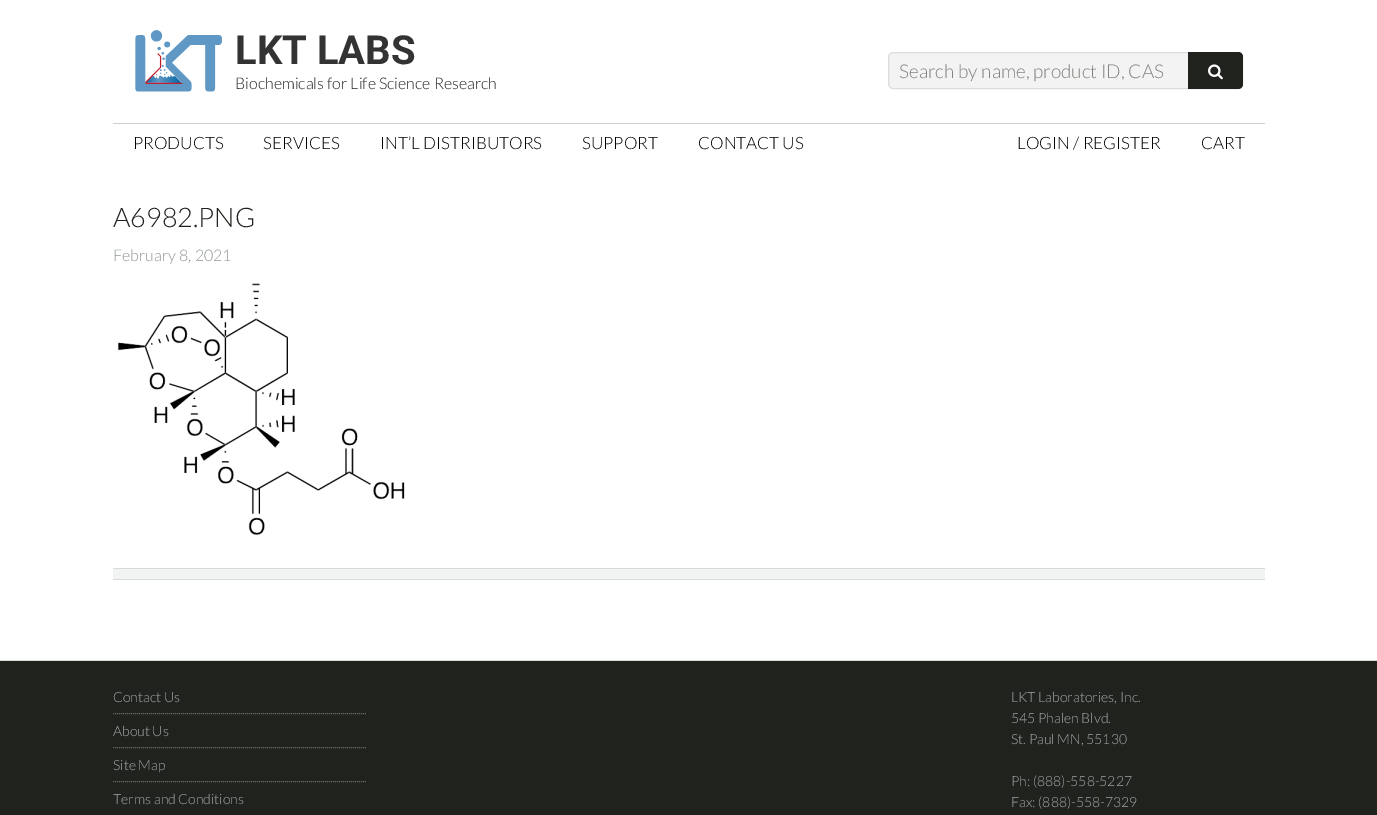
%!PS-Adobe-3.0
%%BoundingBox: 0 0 1377 815
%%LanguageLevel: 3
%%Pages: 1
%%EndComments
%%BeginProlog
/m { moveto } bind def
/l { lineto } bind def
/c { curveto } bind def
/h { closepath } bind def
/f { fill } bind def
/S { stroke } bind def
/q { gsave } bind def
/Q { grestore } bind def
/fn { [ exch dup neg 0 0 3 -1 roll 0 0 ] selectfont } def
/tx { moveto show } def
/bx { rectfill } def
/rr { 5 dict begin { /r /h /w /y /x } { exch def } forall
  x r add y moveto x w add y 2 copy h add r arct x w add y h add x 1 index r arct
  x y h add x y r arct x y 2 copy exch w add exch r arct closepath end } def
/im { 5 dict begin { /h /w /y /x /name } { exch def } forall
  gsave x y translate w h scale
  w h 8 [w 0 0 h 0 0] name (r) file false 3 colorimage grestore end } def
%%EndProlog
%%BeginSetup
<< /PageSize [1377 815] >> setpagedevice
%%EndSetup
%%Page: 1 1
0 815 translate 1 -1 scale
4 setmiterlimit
1 setgray
0 0 1377 815 bx
(image0.raw) 135 30 87 62 im
/Roboto-Bold 40 fn
0.2 setgray
(LKT LABS) 235 64 tx
/Lato-Light 16 fn
0.125 0.133 0.114 setrgbcolor
(Biochemicals for Life Science Research) 235 89 tx
0.953 setgray
888.5 52.5 354 36 4.5 rr q f Q
0.855 0.867 0.871 setrgbcolor
S
/Lato-Light 19 fn
0.51 0.514 0.494 setrgbcolor
(Search by name, product ID, CAS) 899 78 tx
0.125 0.133 0.114 setrgbcolor
1188 52 m 1238 52 l 1241 52 1243 54 1243 57 c 1243 84 l 1243 87 1241 89 1238 89 c 1188 89 l h f
(image1.raw) 1208 64 15 16 im
0.804 0.82 0.824 setrgbcolor
113 123 1152 1 bx
/Lato-Light 17 fn
0 setgray
(PRODUCTS) 133 149 tx
(SERVICES) 263 149 tx
(INT’L DISTRIBUTORS) 380 149 tx
(SUPPORT) 582 149 tx
(CONTACT US) 698 149 tx
(LOGIN / REGISTER) 1017 149 tx
(CART) 1201 149 tx
/Lato-Light 27 fn
0.125 0.133 0.114 setrgbcolor
(A6982.PNG) 113 227 tx
/Lato-Light 16 fn
0.553 0.58 0.584 setrgbcolor
(February 8, 2021) 113 261 tx
(image2.raw) 117 283 288 252 im
0.949 0.957 0.957 setrgbcolor
113 569 1152 10 bx
0.847 0.859 0.863 setrgbcolor
113 568 1152 1 bx
113 579 1152 1 bx
0.125 0.133 0.114 setrgbcolor
0 661 1377 154 bx
0.855 0.867 0.871 setrgbcolor
0 660 1377 1 bx
0.4 setgray
[1 1] 0 setdash
113 713.5 m 366 713.5 l S
/Lato-Light 14 fn
0.639 0.663 0.667 setrgbcolor
(Contact Us) 113 702 tx
0.4 setgray
113 747.5 m 366 747.5 l S
0.639 0.663 0.667 setrgbcolor
(About Us) 113 736 tx
0.4 setgray
113 781.5 m 366 781.5 l S
0.639 0.663 0.667 setrgbcolor
(Site Map) 113 770 tx
(Terms and Conditions) 113 804 tx
(LKT Laboratories, Inc.) 1011 702 tx
(545 Phalen Blvd.) 1011 723 tx
(St. Paul MN, 55130) 1011 744 tx
(Ph: \(888\)-558-5227) 1011 786 tx
(Fax: \(888\)-558-7329) 1011 807 tx
showpage
%%EOF
